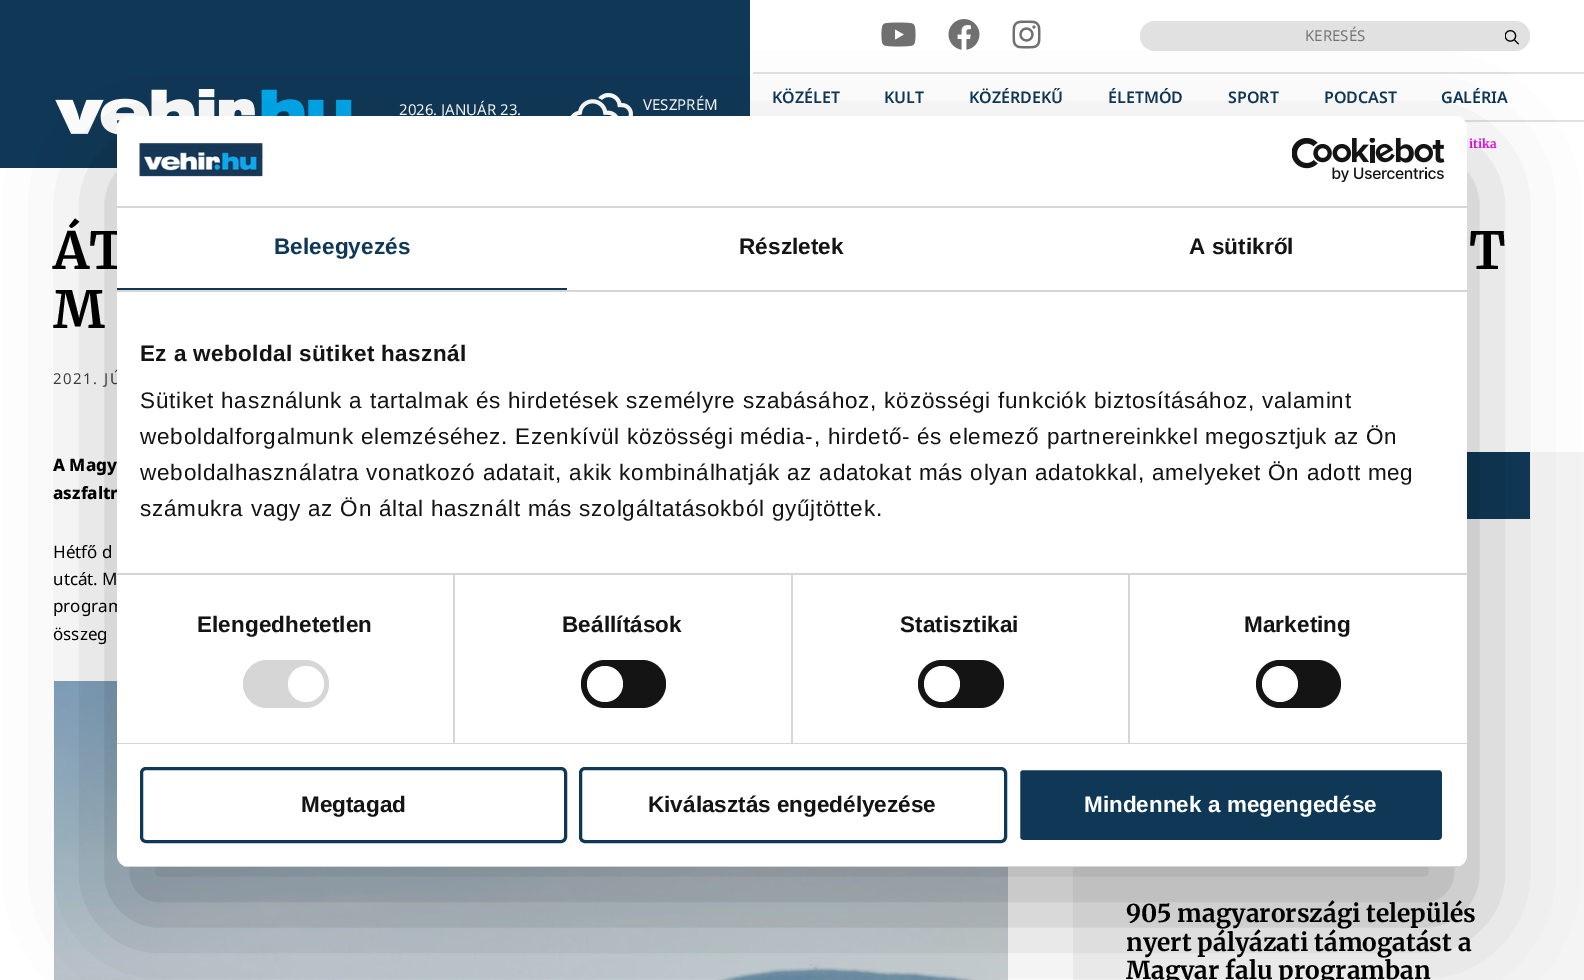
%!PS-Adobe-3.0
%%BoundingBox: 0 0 1584 980
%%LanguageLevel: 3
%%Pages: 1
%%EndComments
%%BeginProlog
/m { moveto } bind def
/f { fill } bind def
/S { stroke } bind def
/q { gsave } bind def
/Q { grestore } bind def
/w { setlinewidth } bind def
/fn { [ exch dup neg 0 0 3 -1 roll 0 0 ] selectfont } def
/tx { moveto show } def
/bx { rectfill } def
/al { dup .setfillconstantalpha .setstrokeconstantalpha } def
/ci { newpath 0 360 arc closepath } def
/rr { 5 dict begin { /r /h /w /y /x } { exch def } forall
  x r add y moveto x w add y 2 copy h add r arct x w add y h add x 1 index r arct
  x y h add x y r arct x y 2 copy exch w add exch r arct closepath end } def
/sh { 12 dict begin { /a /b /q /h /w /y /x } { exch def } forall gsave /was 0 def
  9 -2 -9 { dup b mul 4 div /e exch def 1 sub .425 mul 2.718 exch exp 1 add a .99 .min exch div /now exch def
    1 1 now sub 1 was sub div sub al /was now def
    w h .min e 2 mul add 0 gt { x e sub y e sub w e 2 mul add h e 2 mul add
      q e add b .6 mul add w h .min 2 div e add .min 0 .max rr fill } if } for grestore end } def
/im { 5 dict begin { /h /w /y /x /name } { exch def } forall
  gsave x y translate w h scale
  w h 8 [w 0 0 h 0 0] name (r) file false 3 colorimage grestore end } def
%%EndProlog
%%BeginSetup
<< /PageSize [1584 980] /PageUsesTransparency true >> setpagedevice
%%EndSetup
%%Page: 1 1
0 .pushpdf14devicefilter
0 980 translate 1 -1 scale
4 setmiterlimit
1 setgray
0 0 1584 980 bx
0.059 0.22 0.341 setrgbcolor
0 0 750 168 bx
(image0.raw) 55 89 297 46 im
/NotoSans-Regular 15 fn
1 setgray
(2026. JANUÁR 23.) 399 115 tx
(image1.raw) 570 93 63 23 im
(VESZPRÉM) 643 110 tx
(image2.raw) 881 22 35 25 im
(image3.raw) 948 19 32 31 im
(image4.raw) 1012 20 29 29 im
0.882 setgray
1140 21 390 30 15 rr f
0.459 setgray
(KERESÉS) 1305 41 tx
(image5.raw) 1505 30 14 15 im
0.882 setgray
753 72 831 2 bx
/NotoSans-SemiBold 16 fn
0.059 0.22 0.341 setrgbcolor
(KÖZÉLET) 772 103 tx
(KULT) 884 103 tx
(KÖZÉRDEKŰ) 969 103 tx
(ÉLETMÓD) 1108 103 tx
(SPORT) 1228 103 tx
(PODCAST) 1324 103 tx
(GALÉRIA) 1441 103 tx
0.882 setgray
1463 120 121 2 bx
/Merriweather-Bold 12 fn
0.918 0.047 0.929 setrgbcolor
(itika) 1469 148 tx
/Merriweather-Bold 51 fn
0 setgray
(ÁT) 53 269 tx
(T) 1469 269 tx
(M) 53 328 tx
/NotoSans-Regular 15 fn
0.263 0.259 0.259 setrgbcolor
53 384 m 1.5 0 (2021. JÚ) ashow
/NotoSans-ExtraBold 17 fn
0 setgray
(A Magy) 53 471 tx
(aszfaltr) 53 499 tx
/NotoSans-Regular 17 fn
(Hétfő d) 53 558 tx
(utcát. M) 53 585 tx
(program) 53 612 tx
(összeg) 53 640 tx
(image6.raw) 54 681 954 299 im
0.957 setgray
1073 452 511 528 bx
0.059 0.22 0.341 setrgbcolor
1467 452 63 67 bx
/Merriweather-Bold 24.5 fn
0 setgray
(905 magyarországi település) 1126 922 tx
(nyert pályázati támogatást a) 1126 951 tx
(Magyar falu programban) 1126 979 tx
117 164 1350 751 12 51 0.3 sh
1 setgray
117 116 1350 751 12 rr f
0.839 setgray
117 206 1350 2 bx
(image7.raw) 139 143 124 34 im
(image8.raw) 1292 138 153 45 im
117 290 1350 2 bx
0.059 0.22 0.341 setrgbcolor
117 288 450 2 bx
/LiberationSans-Bold 22.5 fn
274 254 m 0.1 0 (Beleegyezés) ashow
0.078 setgray
739 254 m 0.1 0 (Részletek) ashow
1189 254 m 0.1 0 (A sütikről) ashow
0.839 setgray
117 573 1350 2 bx
0.078 setgray
140 361 m 0.4 0 (Ez a weboldal sütiket használ) ashow
/LiberationSans-Regular 22.5 fn
140 408 m 0.75 0 (Sütiket használunk a tartalmak és hirdetések személyre szabásához, közösségi funkciók biztosításához, valamint) ashow
140 444 m 0.75 0 (weboldalforgalmunk elemzéséhez. Ezenkívül közösségi média-, hirdető- és elemező partnereinkkel megosztjuk az Ön) ashow
140 480 m 0.75 0 (weboldalhasználatra vonatkozó adatait, akik kombinálhatják az adatokat más olyan adatokkal, amelyeket Ön adott meg) ashow
140 516 m 0.75 0 (számukra vagy az Ön által használt más szolgáltatásokból gyűjtöttek.) ashow
0.839 setgray
117 743 1350 1 bx
453 575 2 168 bx
/LiberationSans-Bold 22.5 fn
0.078 setgray
197 632 m 0.1 0 (Elengedhetetlen) ashow
0.839 setgray
243 660 86 48 24 rr f
1 setgray
306 684 18 ci f
0.839 setgray
791 575 2 168 bx
0.078 setgray
562 632 m 0.1 0 (Beállítások) ashow
581 660 85 48 24 rr f
1 setgray
605 684 18 ci f
0.839 setgray
1128 575 2 168 bx
0.078 setgray
900 632 m 0.1 0 (Statisztikai) ashow
918 660 86 48 24 rr f
1 setgray
942 684 18 ci f
0.078 setgray
1244 632 m 0.1 0 (Marketing) ashow
1256 660 85 48 24 rr f
1 setgray
1280 684 18 ci f
q
117 116 1350 751 12 rr clip newpath
0.839 setgray
117 866 1350 1 bx
Q
0.059 0.22 0.341 setrgbcolor
3 w
141.5 768.5 424 73 4.5 rr S
0.078 setgray
(Megtagad) 301 812 tx
0.059 0.22 0.341 setrgbcolor
580.5 768.5 425 73 4.5 rr S
0.078 setgray
(Kiválasztás engedélyezése) 648 812 tx
0.059 0.22 0.341 setrgbcolor
1018.5 768.5 425 73 4.5 rr q f Q
1 setgray
S
(Mindennek a megengedése) 1084 812 tx
.poppdf14devicefilter showpage
%%EOF
